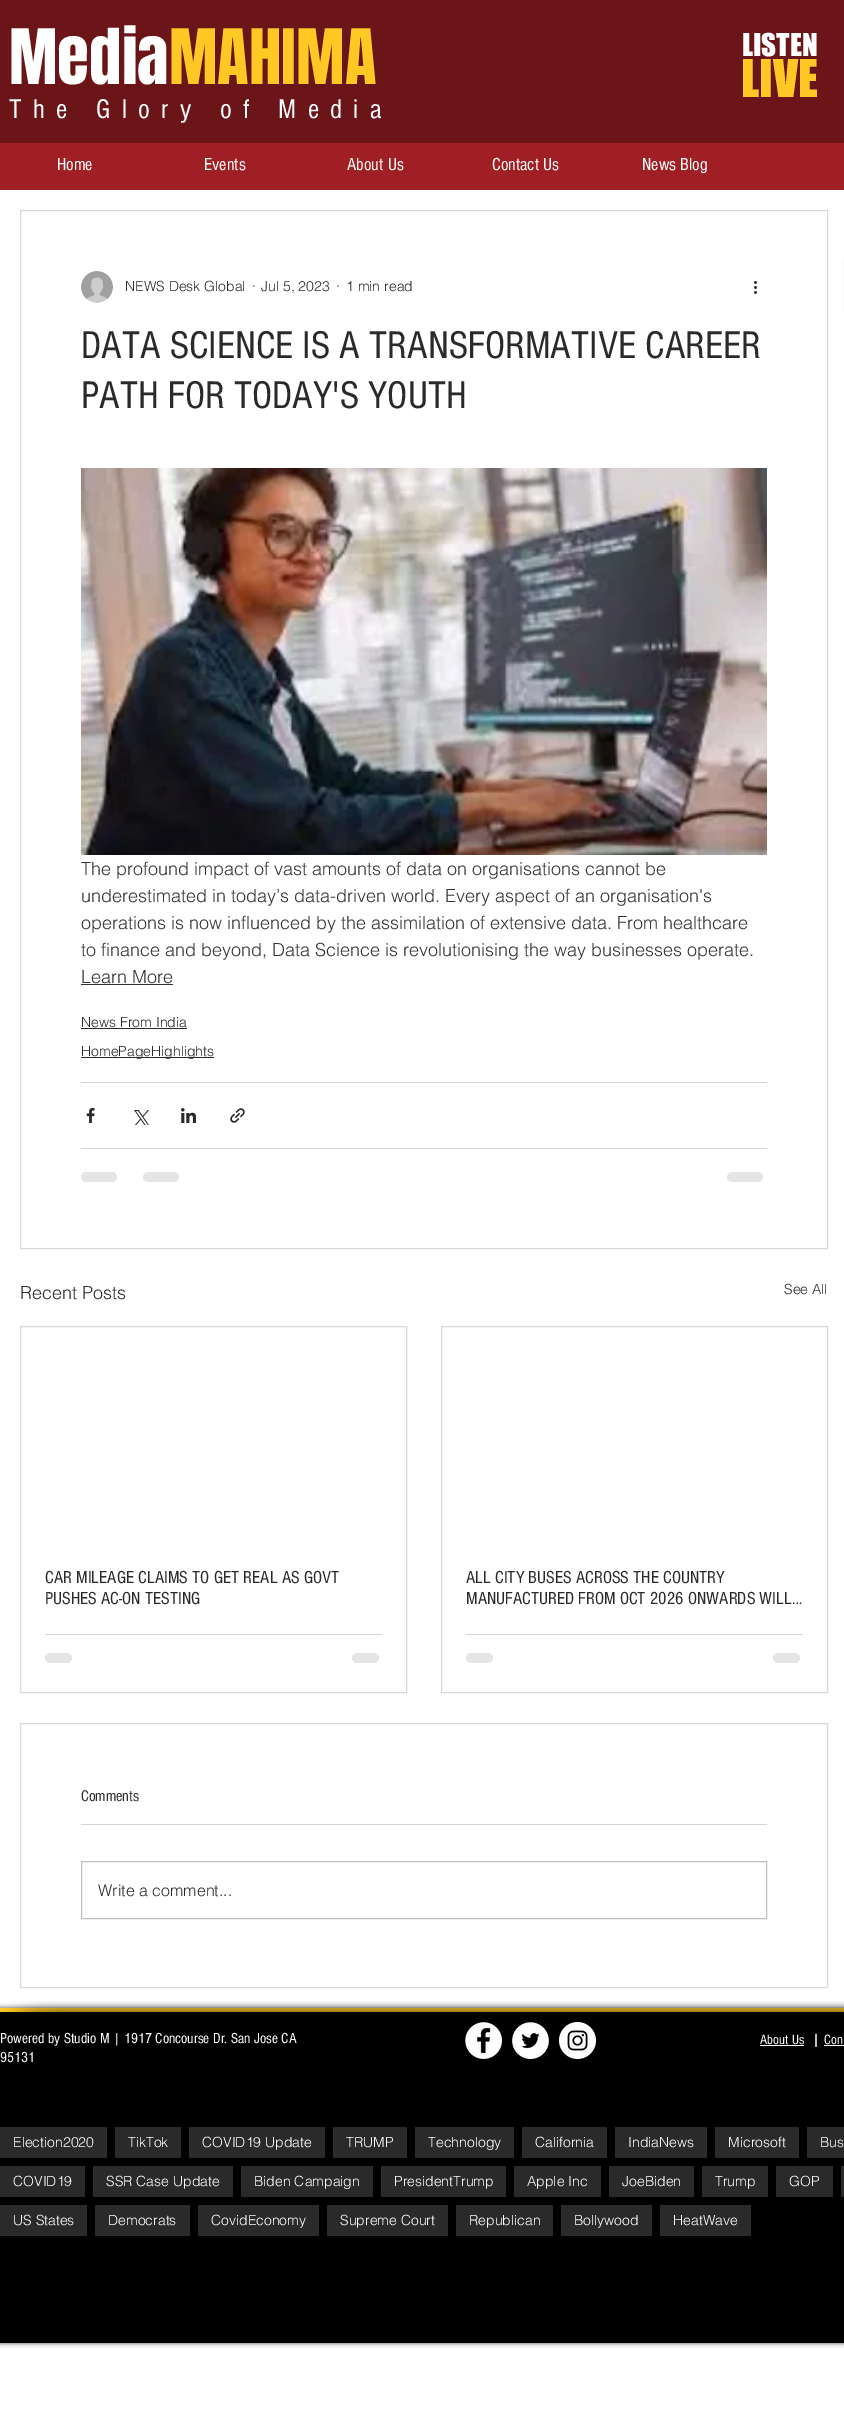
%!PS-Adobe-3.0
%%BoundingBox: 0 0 844 2419
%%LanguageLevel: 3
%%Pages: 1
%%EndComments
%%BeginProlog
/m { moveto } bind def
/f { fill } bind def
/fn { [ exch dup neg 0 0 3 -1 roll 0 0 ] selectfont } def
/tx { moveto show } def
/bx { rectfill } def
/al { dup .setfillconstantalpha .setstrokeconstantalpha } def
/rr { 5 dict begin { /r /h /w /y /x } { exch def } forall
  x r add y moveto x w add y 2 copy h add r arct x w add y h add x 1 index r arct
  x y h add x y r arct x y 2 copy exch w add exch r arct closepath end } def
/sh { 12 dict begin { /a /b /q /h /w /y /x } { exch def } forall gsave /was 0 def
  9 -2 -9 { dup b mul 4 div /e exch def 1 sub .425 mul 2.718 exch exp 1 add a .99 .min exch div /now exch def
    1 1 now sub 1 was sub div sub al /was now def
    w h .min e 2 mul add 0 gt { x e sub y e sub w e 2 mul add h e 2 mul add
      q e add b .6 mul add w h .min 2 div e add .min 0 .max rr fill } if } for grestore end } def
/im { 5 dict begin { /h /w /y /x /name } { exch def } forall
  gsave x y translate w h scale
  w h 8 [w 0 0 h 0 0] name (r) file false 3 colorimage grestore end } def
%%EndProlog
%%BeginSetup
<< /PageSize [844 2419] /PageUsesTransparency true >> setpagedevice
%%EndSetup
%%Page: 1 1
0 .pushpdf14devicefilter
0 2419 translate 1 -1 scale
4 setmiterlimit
1 setgray
0 0 844 2419 bx
0.42 0.082 0.094 setrgbcolor
0 0 844 143 bx
/Anton-Regular 65 fn
1 setgray
(Media) 9 84 tx
1 0.784 0.141 setrgbcolor
(MAHIMA) 169 84 tx
/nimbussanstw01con-Regular 28 fn
1 setgray
9 118 m 11.25 0 (The Glory of Media) ashow
/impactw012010-Regular 29 fn
(LISTEN) 742 56 tx
/impactw012010-Regular 48 fn
1 0.784 0.141 setrgbcolor
(LIVE) 741 97 tx
0.627 0.122 0.141 setrgbcolor
0 143 844 47 bx
/nimbussanstw01con-Regular 18 fn
1 setgray
(Home) 57 170 tx
(Events) 204 170 tx
(About Us) 347 170 tx
(Contact Us) 492 170 tx
(News Blog) 642 170 tx
0.851 setgray
20.5 210.5 807 1038 rectstroke
(image0.raw) 81 271 32 32 im
/helvetica-Light 14 fn
0.165 setgray
(NEWS Desk Global) 125 291 tx
(·) 252 291 tx
(Jul 5, 2023) 261 291 tx
(·) 336 291 tx
(1 min read) 346 291 tx
(image1.raw) 754 281 3 13 im
/nimbussanstw01con-Regular 40 fn
(DATA SCIENCE IS A TRANSFORMATIVE CAREER) 81 358 tx
(PATH FOR TODAY'S YOUTH) 81 408 tx
(image2.raw) 81 468 686 387 im
/helvetica-Light 18 fn
0.2 setgray
(The profound impact of vast amounts of data on organisations cannot be) 81 875 tx
(underestimated in today’s data-driven world. Every aspect of an organisation's) 81 902 tx
(operations is now influenced by the assimilation of extensive data. From healthcare) 81 929 tx
(to finance and beyond, Data Science is revolutionising the way businesses operate.) 81 956 tx
(Learn More) 81 983 tx
81 984 92 1 bx
/helvetica-Light 14 fn
0.165 setgray
(News From India) 81 1027 tx
81 1028 106 1 bx
81 1057 133 1 bx
(HomePageHighlights) 81 1056 tx
0.831 setgray
81 1082 686 1 bx
(image3.raw) 86 1108 9 15 im
(image4.raw) 134 1110 15 15 im
(image5.raw) 181 1108 15 15 im
(image6.raw) 230 1108 15 15 im
81 1148 686 1 bx
0.898 setgray
81 1172 36 10 5 rr f
143 1172 36 10 5 rr f
727 1172 36 10 5 rr f
/helvetica-Light 18 fn
0.165 setgray
(Recent Posts) 20 1299 tx
/helvetica-Light 14 fn
(See All) 784 1294 tx
0.851 setgray
20.5 1326.5 386 366 rectstroke
/nimbussanstw01con-Regular 18 fn
0.165 setgray
(CAR MILEAGE CLAIMS TO GET REAL AS GOVT) 45 1583 tx
(PUSHES AC-ON TESTING) 45 1604 tx
0.831 setgray
45 1634 337 1 bx
0.898 setgray
45 1653 27 10 5 rr f
352 1653 27 10 5 rr f
0.851 setgray
441.5 1326.5 386 366 rectstroke
0.165 setgray
(ALL CITY BUSES ACROSS THE COUNTRY) 466 1583 tx
(MANUFACTURED FROM OCT 2026 ONWARDS WILL…) 466 1604 tx
0.831 setgray
466 1634 337 1 bx
0.898 setgray
466 1653 27 10 5 rr f
773 1653 27 10 5 rr f
0.851 setgray
20.5 1723.5 807 264 rectstroke
/nimbussanstw01con-Regular 16 fn
0.165 setgray
(Comments) 81 1801 tx
0.831 setgray
81 1824 686 1 bx
0.749 setgray
81.5 1861.5 685 57 rectstroke
/helvetica-Light 16 fn
0.165 setgray
(Write a comment...) 98 1896 tx
0.98 setgray
843 259 1 52 bx
0 setgray
0 2008 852 335 0 2.5 0.7 sh
0 2012 844 331 bx
1 0.784 0.141 setrgbcolor
0 2008 844 4 bx
(image7.raw) 3 2001 97 11 im
(image8.raw) 100 2001 744 11 im
/nimbussanstw01con-Regular 15 fn
1 setgray
(Powered by Studio M | 1917 Concourse Dr. San Jose CA) 0 2043 tx
(95131) 0 2062 tx
(image9.raw) 465 2022 37 37 im
(image10.raw) 512 2022 37 37 im
(image11.raw) 559 2022 37 37 im
/nimbussanstw01con-Regular 14 fn
(About Us) 760 2044 tx
760 2045 44 1 bx
/nimbussanstw01con-Regular 20 fn
(I) 814 2047 tx
/nimbussanstw01con-Regular 14 fn
(Con) 824 2044 tx
824 2045 20 1 bx
0.165 setgray
0 2127 107 31 bx
/helvetica-Light 14 fn
1 setgray
(Election2020) 13 2147 tx
0.165 setgray
115 2127 66 31 bx
1 setgray
(TikTok) 128 2147 tx
0.165 setgray
189 2127 136 31 bx
1 setgray
(COVID19 Update) 202 2147 tx
0.165 setgray
333 2127 74 31 bx
1 setgray
(TRUMP) 346 2147 tx
0.165 setgray
415 2127 99 31 bx
1 setgray
(Technology) 428 2147 tx
0.165 setgray
522 2127 85 31 bx
1 setgray
(California) 535 2147 tx
0.165 setgray
615 2127 92 31 bx
1 setgray
(IndiaNews) 628 2147 tx
0.165 setgray
715 2127 84 31 bx
1 setgray
(Microsoft) 728 2147 tx
0.165 setgray
807 2127 37 31 bx
1 setgray
(Bus) 820 2147 tx
0.165 setgray
0 2166 85 31 bx
1 setgray
(COVID19) 13 2186 tx
0.165 setgray
93 2166 140 31 bx
1 setgray
(SSR Case Update) 106 2186 tx
0.165 setgray
241 2166 132 31 bx
1 setgray
(Biden Campaign) 254 2186 tx
0.165 setgray
381 2166 125 31 bx
1 setgray
(PresidentTrump) 394 2186 tx
0.165 setgray
514 2166 87 31 bx
1 setgray
(Apple Inc) 527 2186 tx
0.165 setgray
609 2166 85 31 bx
1 setgray
(JoeBiden) 622 2186 tx
0.165 setgray
702 2166 66 31 bx
1 setgray
(Trump) 715 2186 tx
0.165 setgray
776 2166 57 31 bx
1 setgray
(GOP) 789 2186 tx
0.165 setgray
841 2166 3 31 bx
0 2205 87 31 bx
1 setgray
(US States) 13 2225 tx
0.165 setgray
95 2205 95 31 bx
1 setgray
(Democrats) 108 2225 tx
0.165 setgray
198 2205 121 31 bx
1 setgray
(CovidEconomy) 211 2225 tx
0.165 setgray
327 2205 121 31 bx
1 setgray
(Supreme Court) 340 2225 tx
0.165 setgray
456 2205 97 31 bx
1 setgray
(Republican) 469 2225 tx
0.165 setgray
561 2205 91 31 bx
1 setgray
(Bollywood) 574 2225 tx
0.165 setgray
660 2205 91 31 bx
1 setgray
(HeatWave) 673 2225 tx
.poppdf14devicefilter showpage
%%EOF
